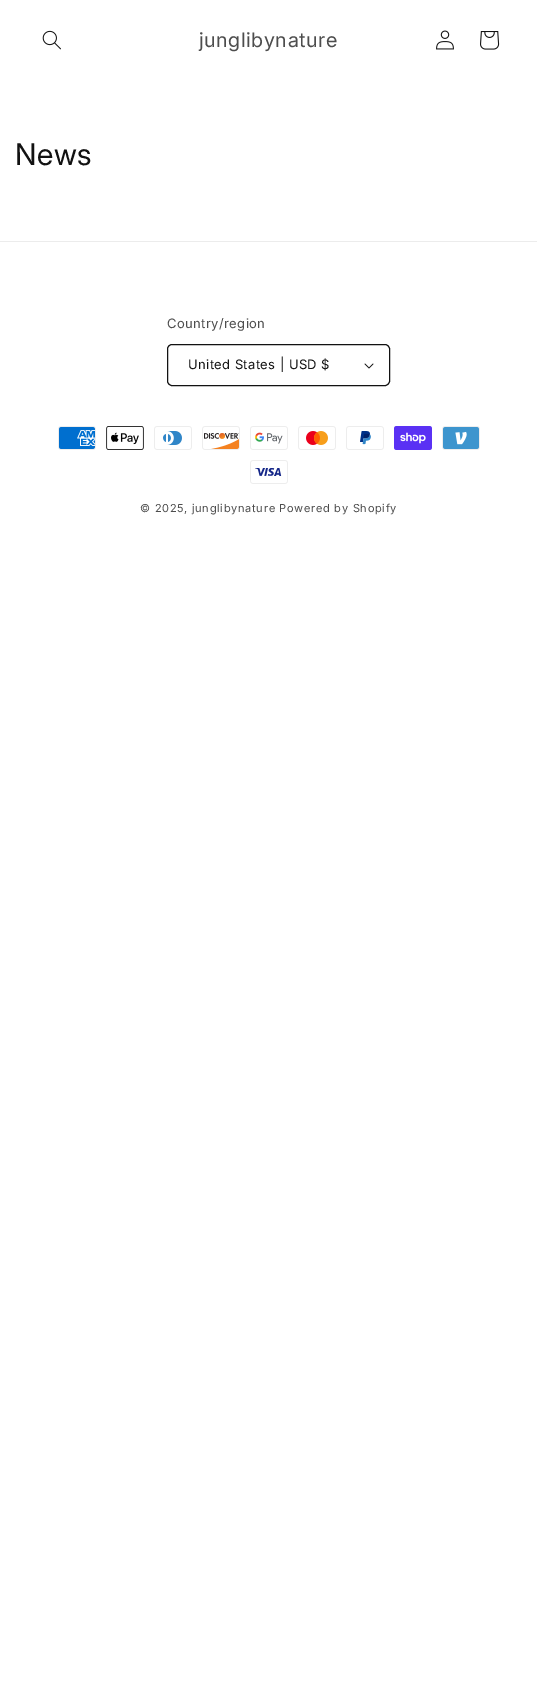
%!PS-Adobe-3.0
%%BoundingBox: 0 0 537 1702
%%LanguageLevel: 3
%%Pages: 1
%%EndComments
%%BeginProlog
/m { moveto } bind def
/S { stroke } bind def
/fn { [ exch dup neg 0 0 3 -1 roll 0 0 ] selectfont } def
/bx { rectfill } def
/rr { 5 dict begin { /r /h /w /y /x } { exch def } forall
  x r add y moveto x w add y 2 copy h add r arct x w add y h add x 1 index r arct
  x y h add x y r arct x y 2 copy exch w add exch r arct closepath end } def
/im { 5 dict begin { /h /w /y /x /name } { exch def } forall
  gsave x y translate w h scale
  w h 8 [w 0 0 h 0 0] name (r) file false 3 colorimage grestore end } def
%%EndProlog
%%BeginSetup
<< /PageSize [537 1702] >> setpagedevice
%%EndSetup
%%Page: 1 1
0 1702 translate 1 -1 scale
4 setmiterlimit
1 setgray
0 0 537 1702 bx
(image0.raw) 42 30 19 20 im
/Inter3-Regular 20 fn
0.302 setgray
199 47 m 0.6 0 (junglibynature) ashow
(image1.raw) 436 30 18 20 im
(image2.raw) 480 31 20 19 im
/Inter-Regular 30 fn
0.071 setgray
15 165 m 0.6 0 (News) ashow
0.925 setgray
0 241 537 1 bx
/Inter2-Regular 13 fn
0.302 setgray
167 328 m 0.4 0 (Country/region) ashow
(image3.raw) 364 363 10 6 im
0.071 setgray
167.5 344.5 222 41 4.5 rr S
188 369 m 0.4 0 (United States | USD $) ashow
(image4.raw) 58 426 38 24 im
(image5.raw) 106 426 38 24 im
(image6.raw) 154 426 38 24 im
(image7.raw) 202 426 38 24 im
(image8.raw) 250 426 38 24 im
(image9.raw) 298 426 38 24 im
(image10.raw) 346 426 38 24 im
(image11.raw) 394 426 38 24 im
(image12.raw) 442 426 38 24 im
(image13.raw) 250 460 38 24 im
/Inter2-Regular 11 fn
0.302 setgray
140 512 m 0.7 0 (© 2025, junglibynature Powered by Shopify) ashow
showpage
%%EOF
